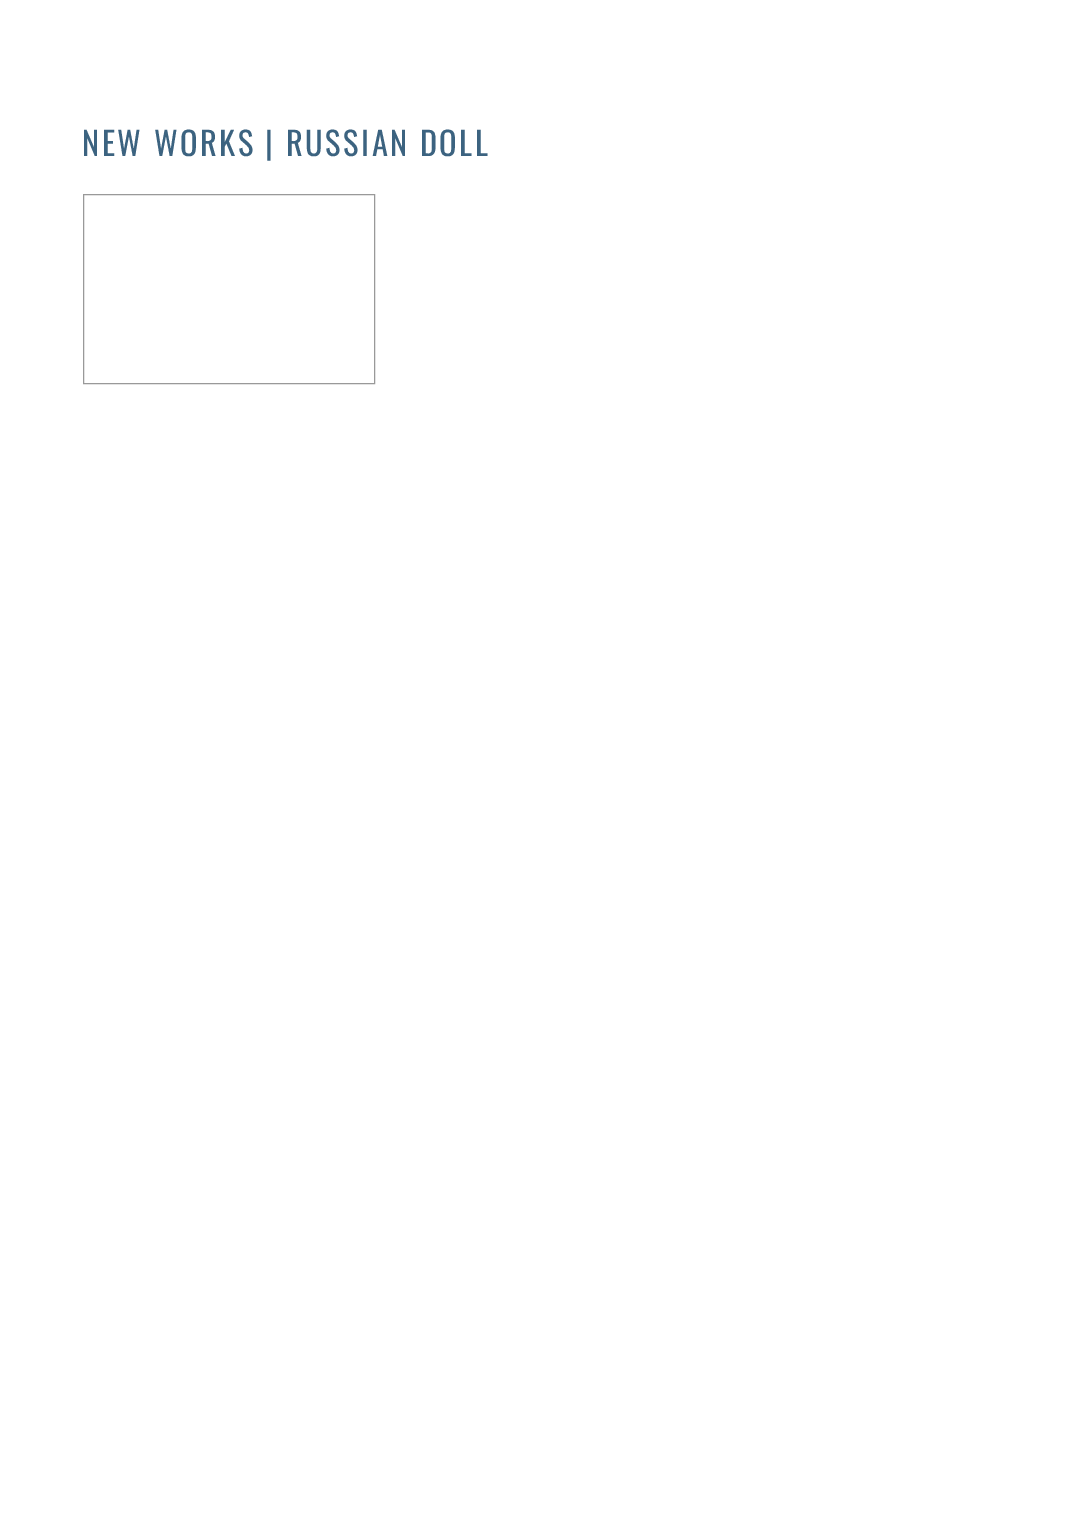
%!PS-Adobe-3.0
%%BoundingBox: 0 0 1071 1524
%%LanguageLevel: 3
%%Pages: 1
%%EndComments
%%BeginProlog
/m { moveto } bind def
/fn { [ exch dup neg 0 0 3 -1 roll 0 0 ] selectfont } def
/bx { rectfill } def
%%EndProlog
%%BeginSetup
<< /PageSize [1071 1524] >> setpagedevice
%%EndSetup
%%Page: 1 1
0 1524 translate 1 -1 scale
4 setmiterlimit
1 setgray
0 0 1071 1524 bx
/Oswald-Regular 32.5 fn
0.235 0.388 0.502 setrgbcolor
82 156 m 2.5 0 (NEW WORKS | RUSSIAN DOLL) ashow
0.6 setgray
83.5 194.5 291 189 rectstroke
showpage
%%EOF
